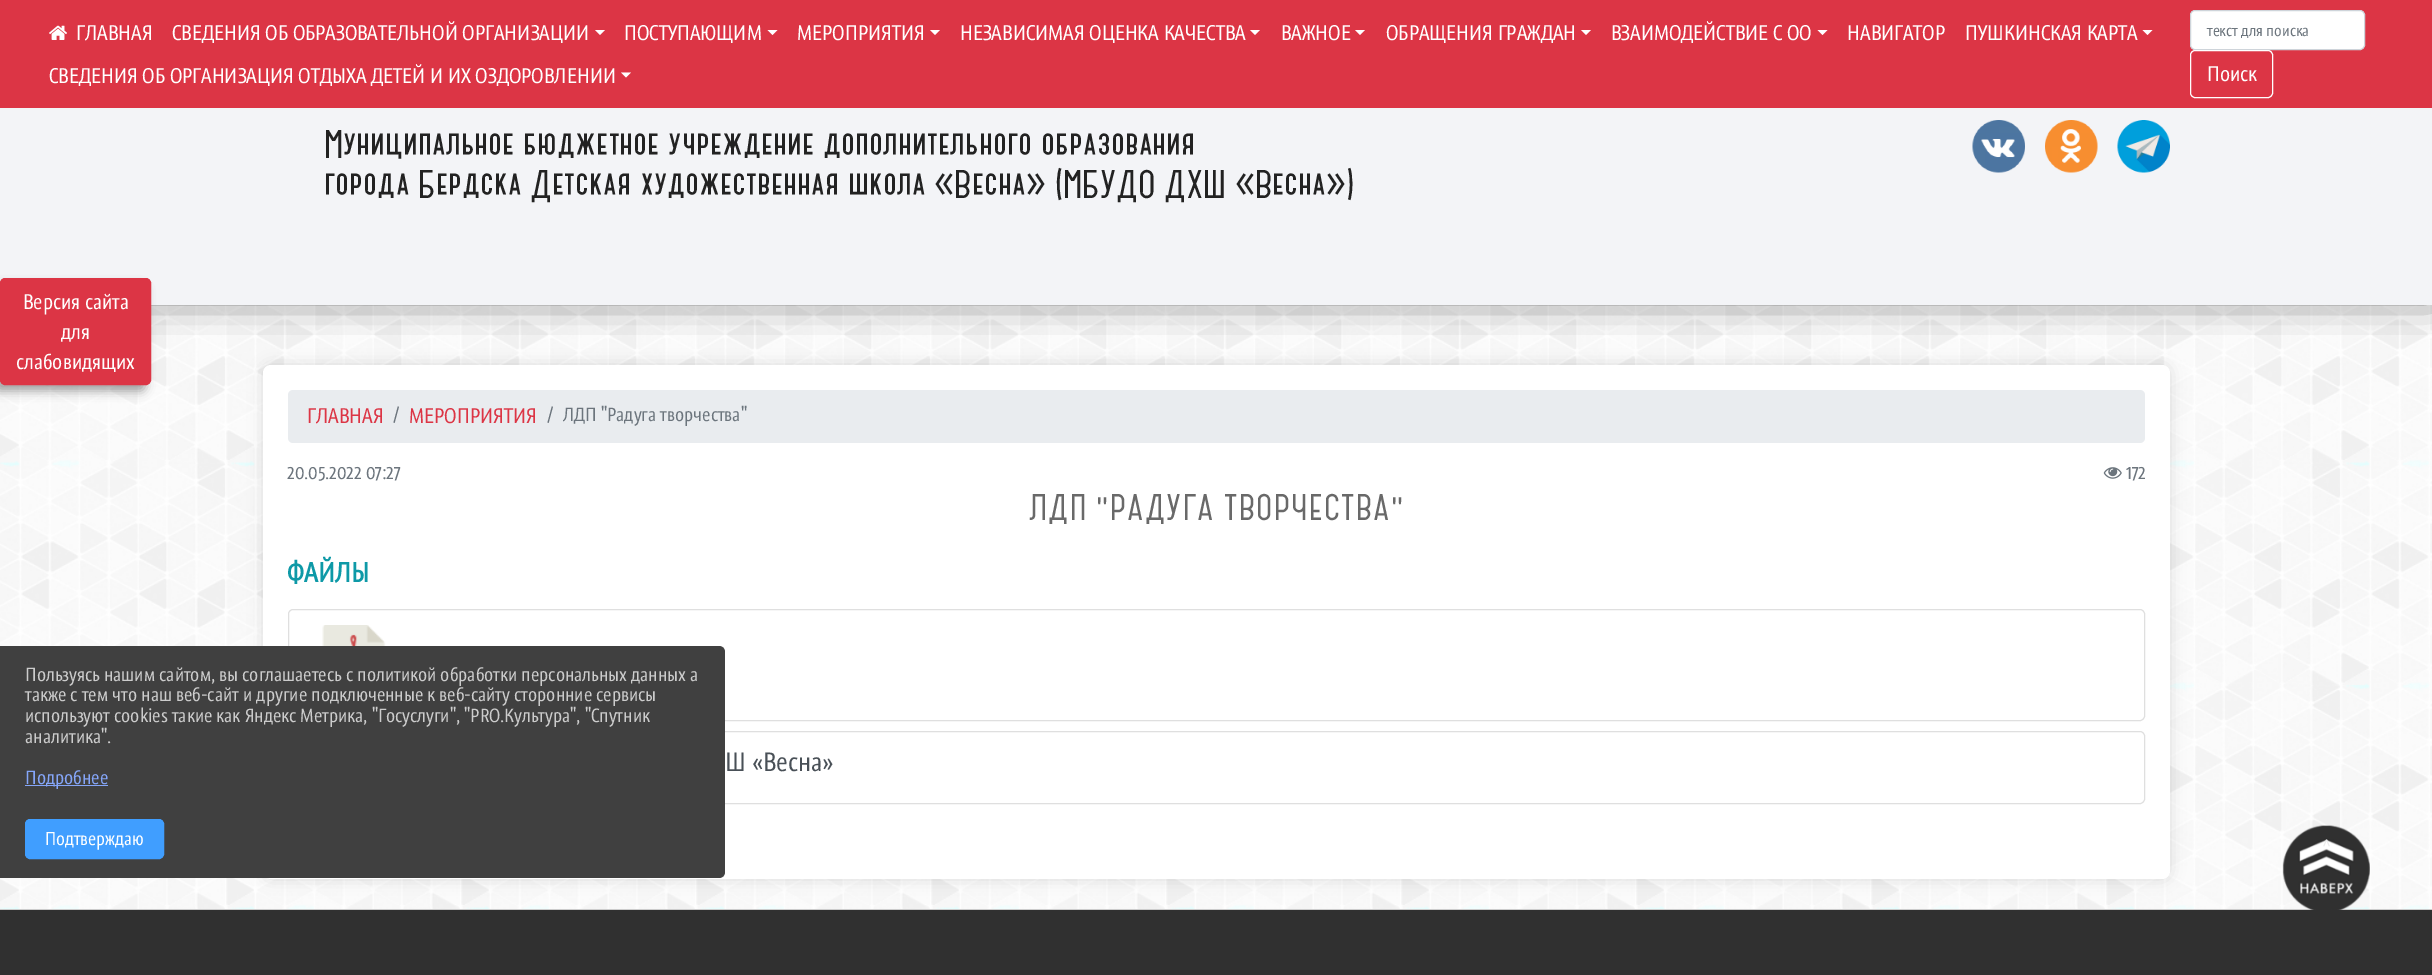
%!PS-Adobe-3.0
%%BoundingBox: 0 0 2432 975
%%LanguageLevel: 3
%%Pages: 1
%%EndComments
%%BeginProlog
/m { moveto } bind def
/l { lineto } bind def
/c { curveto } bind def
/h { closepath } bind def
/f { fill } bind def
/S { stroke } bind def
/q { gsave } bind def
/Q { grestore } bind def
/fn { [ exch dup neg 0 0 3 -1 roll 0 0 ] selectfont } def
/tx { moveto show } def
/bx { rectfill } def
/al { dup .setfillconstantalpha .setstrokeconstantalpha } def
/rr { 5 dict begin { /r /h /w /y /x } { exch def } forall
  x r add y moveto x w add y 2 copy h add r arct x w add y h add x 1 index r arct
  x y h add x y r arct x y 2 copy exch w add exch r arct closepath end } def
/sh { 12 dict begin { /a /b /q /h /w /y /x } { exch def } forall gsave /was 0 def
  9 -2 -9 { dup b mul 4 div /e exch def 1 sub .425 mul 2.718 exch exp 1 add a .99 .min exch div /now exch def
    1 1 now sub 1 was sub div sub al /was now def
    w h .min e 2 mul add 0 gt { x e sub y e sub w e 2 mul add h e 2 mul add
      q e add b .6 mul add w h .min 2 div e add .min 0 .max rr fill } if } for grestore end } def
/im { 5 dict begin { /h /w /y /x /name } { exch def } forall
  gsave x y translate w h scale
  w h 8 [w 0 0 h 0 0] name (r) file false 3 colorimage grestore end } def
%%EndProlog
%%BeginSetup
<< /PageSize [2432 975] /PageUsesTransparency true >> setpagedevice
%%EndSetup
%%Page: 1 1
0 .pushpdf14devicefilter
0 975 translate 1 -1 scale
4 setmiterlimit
1 setgray
0 0 2432 975 bx
(image0.raw) 0 305 2432 604 im
0 setgray
0 -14 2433 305 0 19.5 1 sh
0.863 0.208 0.271 setrgbcolor
0 0 2432 108 bx
(image1.raw) 49 25 18 15 im
/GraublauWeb-Regular 20 fn
1 setgray
(ГЛАВНАЯ) 76 40 tx
(СВЕДЕНИЯ ОБ ОБРАЗОВАТЕЛЬНОЙ ОРГАНИЗАЦИИ) 172 40 tx
595 30 m 605 30 l 600 35 l h f
(ПОСТУПАЮЩИМ) 624 40 tx
767.5 30 m 777.5 30 l 772.5 35 l h f
(МЕРОПРИЯТИЯ) 797 40 tx
930 30 m 940 30 l 935 35 l h f
(НЕЗАВИСИМАЯ ОЦЕНКА КАЧЕСТВА) 960 40 tx
1250 30 m 1260 30 l 1255 35 l h f
(ВАЖНОЕ) 1281 40 tx
1355 30 m 1365 30 l 1360 35 l h f
(ОБРАЩЕНИЯ ГРАЖДАН) 1386 40 tx
1581 30 m 1591 30 l 1586 35 l h f
(ВЗАИМОДЕЙСТВИЕ С ОО) 1611 40 tx
1817.5 30 m 1827.5 30 l 1822.5 35 l h f
(НАВИГАТОР) 1847 40 tx
(ПУШКИНСКАЯ КАРТА) 1965 40 tx
2142.5 30 m 2152.5 30 l 2147.5 35 l h f
(СВЕДЕНИЯ ОБ ОРГАНИЗАЦИЯ ОТДЫХА ДЕТЕЙ И ИХ ОЗДОРОВЛЕНИИ) 49 83 tx
621 72.5 m 631 72.5 l 626 77.5 l h f
2190.5 10.5 174 39 4.5 rr q f Q
0.808 0.831 0.855 setrgbcolor
S
/GraublauWeb-Regular 15 fn
0.424 0.459 0.49 setrgbcolor
(текст для поиска) 2207 36 tx
1 setgray
2190.5 50.5 82 47 4.5 rr S
/GraublauWeb-Regular 20 fn
(Поиск) 2207 81 tx
0.953 0.957 0.969 setrgbcolor
0 108 2432 197 bx
/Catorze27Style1-SemiBold 35 fn
0.133 setgray
(Муниципальное бюджетное учреждение дополнительного образования) 324 158 tx
(города Бердска Детская художественная школа «Весна» \(МБУДО ДХШ «Весна»\)) 324 198 tx
(image2.raw) 1972 120 53 53 im
(image3.raw) 2045 120 53 53 im
(image4.raw) 2117 120 53 53 im
0 setgray
263 365 1907 514 8 7.5 0.12 sh
1 setgray
263 365 1907 514 8 rr f
0.914 0.925 0.937 setrgbcolor
288 390 1857 53 5 rr f
/GraublauWeb-Regular 20 fn
0.863 0.208 0.271 setrgbcolor
(ГЛАВНАЯ) 307 423 tx
/GraublauWeb-Regular 18 fn
0.424 0.459 0.49 setrgbcolor
(/) 393 421 tx
/GraublauWeb-Regular 20 fn
0.863 0.208 0.271 setrgbcolor
(МЕРОПРИЯТИЯ) 409 423 tx
/GraublauWeb-Regular 18 fn
0.424 0.459 0.49 setrgbcolor
(/) 547 421 tx
(ЛДП "Радуга творчества") 563 421 tx
(20.05.2022 07:27) 287 479 tx
(image5.raw) 2103 467 19 12 im
(172) 2126 479 tx
/Catorze27Style1-SemiBold 32.5 fn
0.412 setgray
1029 520 m 1.25 0 (ЛДП "РАДУГА ТВОРЧЕСТВА") ashow
/GraublauWeb-Bold 26 fn
0.055 0.6 0.655 setrgbcolor
(ФАЙЛЫ) 287 582 tx
0.875 setgray
288.5 609.5 1856 111 4.5 rr S
(image6.raw) 322 625 64 21 im
288.5 731.5 1856 72 4.5 rr S
/GraublauWeb-Regular 25 fn
0.286 0.314 0.341 setrgbcolor
(Ш «Весна») 725 771 tx
0.188 setgray
0 910 2432 65 bx
0.8 setgray
0 909 2432 1 bx
(image7.raw) 2282 825 88 85 im
/GraublauWeb-Regular 15 fn
0.925 setgray
(^) 2323 851 tx
0 setgray
-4 286 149 105 4 5 0.35 sh
0.863 0.208 0.271 setrgbcolor
0.5 278.5 150 106 4.5 rr q f Q
S
/GraublauWeb-Regular 20 fn
1 setgray
(Версия сайта) 23 309 tx
(для) 61 339 tx
(слабовидящих) 16 369 tx
0.251 setgray
0 646 m 719 646 l 722.5 646 725 648.5 725 652 c 725 872 l 725 875.5 722.5 878 719 878 c 0 878 l h f
/GraublauWeb-Regular 18 fn
0.8 setgray
(Пользуясь нашим сайтом, вы соглашаетесь с политикой обработки персональных данных а) 25 681 tx
(также с тем что наш веб-сайт и другие подключенные к веб-сайту сторонние сервисы) 25 701 tx
(используют cookies такие как Яндекс Метрика, "Госуслуги", "PRO.Культура", "Спутник) 25 722 tx
(аналитика".) 25 743 tx
0.522 0.651 0.976 setrgbcolor
25 785 83 1 bx
(Подробнее) 25 784 tx
0.251 0.62 1 setrgbcolor
25.5 819.5 138 39 4.5 rr q f Q
S
/GraublauWeb-Regular 17.5 fn
1 setgray
(Подтверждаю) 45 845 tx
.poppdf14devicefilter showpage
%%EOF
